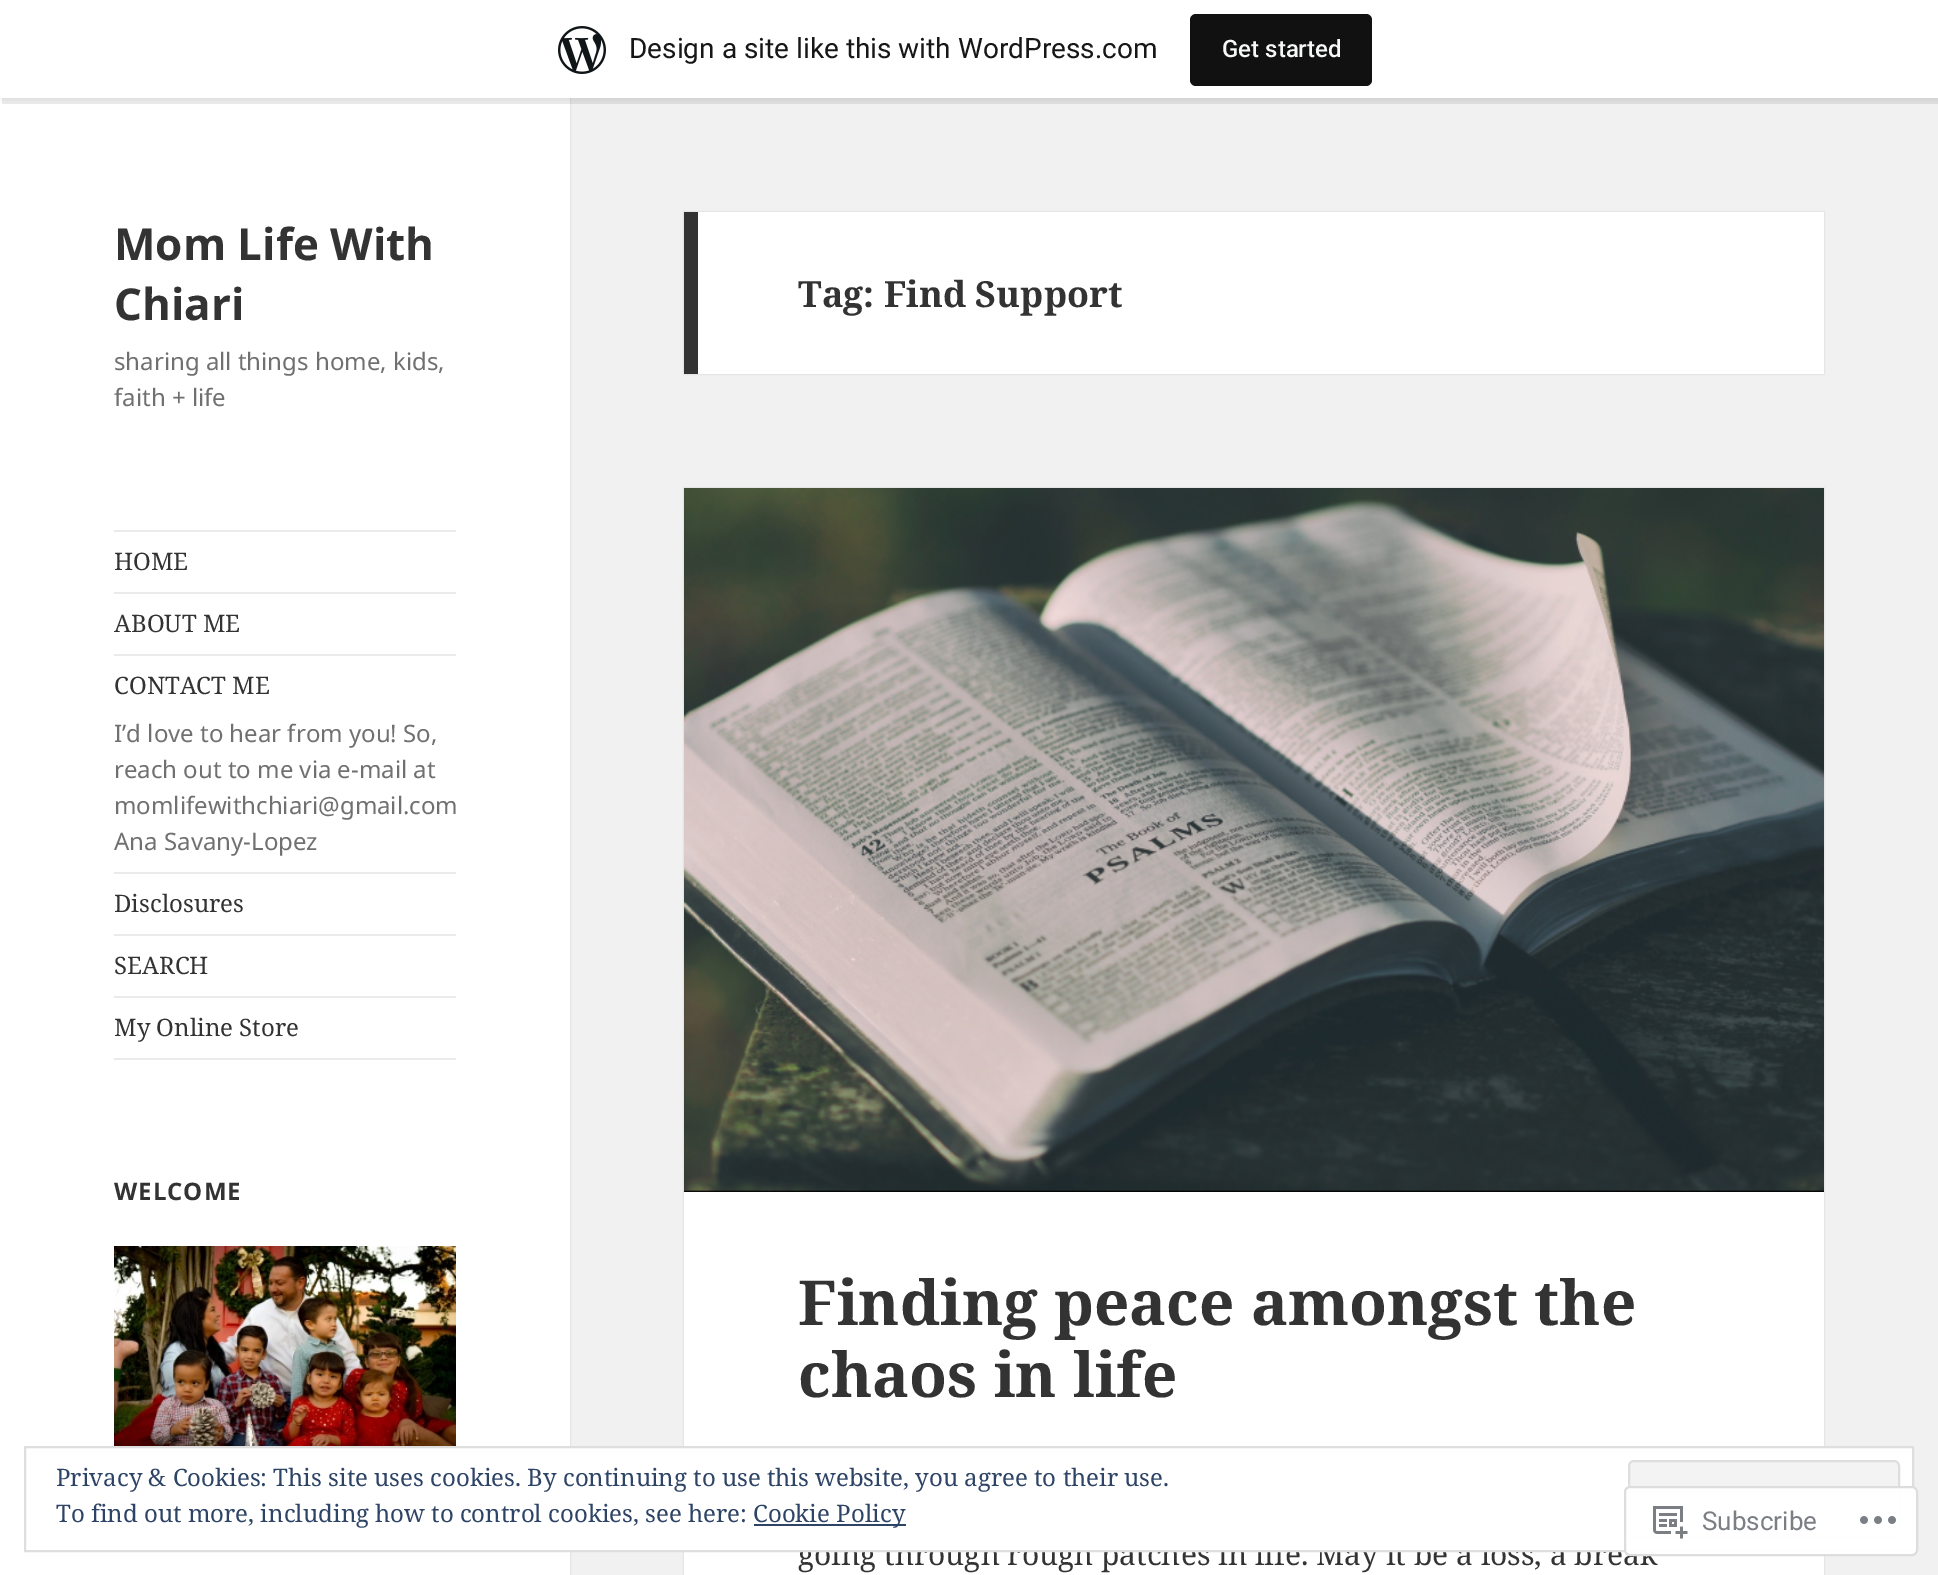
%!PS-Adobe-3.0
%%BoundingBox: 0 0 1938 1575
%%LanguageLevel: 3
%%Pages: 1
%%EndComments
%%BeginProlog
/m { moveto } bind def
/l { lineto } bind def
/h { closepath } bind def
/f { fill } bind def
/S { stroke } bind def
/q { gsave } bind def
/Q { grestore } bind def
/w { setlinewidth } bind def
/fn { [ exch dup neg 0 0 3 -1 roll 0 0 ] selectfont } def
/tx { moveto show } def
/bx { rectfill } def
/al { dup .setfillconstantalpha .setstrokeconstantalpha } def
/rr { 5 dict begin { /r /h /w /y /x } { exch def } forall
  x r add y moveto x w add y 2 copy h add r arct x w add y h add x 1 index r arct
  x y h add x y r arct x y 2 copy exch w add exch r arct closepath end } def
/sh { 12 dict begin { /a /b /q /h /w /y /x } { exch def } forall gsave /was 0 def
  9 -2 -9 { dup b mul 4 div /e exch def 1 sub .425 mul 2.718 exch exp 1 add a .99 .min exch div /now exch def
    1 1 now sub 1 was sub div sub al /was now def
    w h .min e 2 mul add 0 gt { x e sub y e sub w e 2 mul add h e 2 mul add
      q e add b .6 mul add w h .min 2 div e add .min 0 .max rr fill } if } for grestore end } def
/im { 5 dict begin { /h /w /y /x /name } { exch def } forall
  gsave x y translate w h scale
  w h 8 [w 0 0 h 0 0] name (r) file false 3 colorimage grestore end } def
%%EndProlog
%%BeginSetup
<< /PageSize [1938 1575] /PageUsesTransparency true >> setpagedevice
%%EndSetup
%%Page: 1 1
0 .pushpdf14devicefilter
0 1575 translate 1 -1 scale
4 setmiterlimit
0.945 setgray
0 0 1938 1575 bx
0 setgray
0 0 570 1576 0 1 0.15 sh
1 setgray
0 98 570 1477 bx
0 setgray
0 2 1938 98 0 2 0.05 sh
0.08 al
2 98 m 2 104 l 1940 104 l 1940 6 l 1938 6 l 1938 98 l h f
1 al
1 setgray
0 0 1938 98 bx
(image0.raw) 558 26 48 48 im
/Roboto-Regular 28 fn
0.09 setgray
(Design a site like this with WordPress.com) 629 58 tx
0.067 setgray
1190 14 182 72 6 rr f
/Roboto-Medium 24 fn
0.965 0.969 0.969 setrgbcolor
(Get started) 1222 57 tx
/NotoSans-Bold 44 fn
0.2 setgray
(Mom Life With) 114 260 tx
(Chiari) 114 320 tx
/NotoSans-Regular 24 fn
0.439 setgray
(sharing all things home, kids,) 114 370 tx
(faith + life) 114 406 tx
0.922 setgray
114 530 342 2 bx
114 1058 342 2 bx
/NotoSerif-Regular 24 fn
0.2 setgray
(HOME) 114 570 tx
0.922 setgray
114 592 342 2 bx
0.2 setgray
(ABOUT ME) 114 632 tx
0.922 setgray
114 654 342 2 bx
0.2 setgray
(CONTACT ME) 114 694 tx
/NotoSans-Regular 24 fn
0.439 setgray
(I’d love to hear from you! So,) 114 742 tx
(reach out to me via e-mail at) 114 778 tx
(momlifewithchiari@gmail.com) 114 814 tx
(Ana Savany-Lopez) 114 850 tx
0.922 setgray
114 872 342 2 bx
/NotoSerif-Regular 24 fn
0.2 setgray
(Disclosures) 114 912 tx
0.922 setgray
114 934 342 2 bx
0.2 setgray
(SEARCH) 114 974 tx
0.922 setgray
114 996 342 2 bx
0.2 setgray
(My Online Store) 114 1036 tx
/NotoSans-Bold 24 fn
114 1200 m 1 0 (WELCOME) ashow
(image1.raw) 114 1246 342 200 im
0 setgray
684 212 1140 162 0 1 0.15 sh
1 setgray
698 212 1126 162 bx
0.2 setgray
684 212 14 162 bx
/NotoSerif-Bold 36 fn
(Tag: Find Support) 798 307 tx
0 setgray
684 488 1140 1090 0 1 0.15 sh
1 setgray
684 1192 1140 383 bx
(image2.raw) 684 488 1140 704 im
/NotoSerif-Bold 62 fn
0.2 setgray
(Finding peace amongst the) 798 1325 tx
(chaos in life) 798 1397 tx
/NotoSerif-Regular 30 fn
(going through rough patches in life. May it be a loss, a break) 798 1565 tx
1 setgray
570 1448 1342 102 bx
0.871 setgray
2 w
25 1447 1888 104 rectstroke
/NotoSerif-Regular 24 fn
0.18 0.267 0.404 setrgbcolor
(Privacy & Cookies: This site uses cookies. By continuing to use this website, you agree to their use.) 56 1486 tx
0.953 setgray
1629 1461 270 76 5 rr q f Q
0.871 setgray
S
0.18 0.267 0.404 setrgbcolor
(To find out more, including how to control cookies, see here:) 56 1522 tx
754 1524 152 2 bx
(Cookie Policy) 753 1522 tx
0.98 al
1 setgray
1624 1486 294 70 6 rr f
0.863 0.863 0.871 setrgbcolor
1625 1487 292 68 5 rr S
1 al
(image3.raw) 1653 1506 35 33 im
/Roboto-Regular 26 fn
0.482 0.498 0.518 setrgbcolor
(Subscribe) 1702 1530 tx
(image4.raw) 1860 1516 36 8 im
.poppdf14devicefilter showpage
%%EOF
